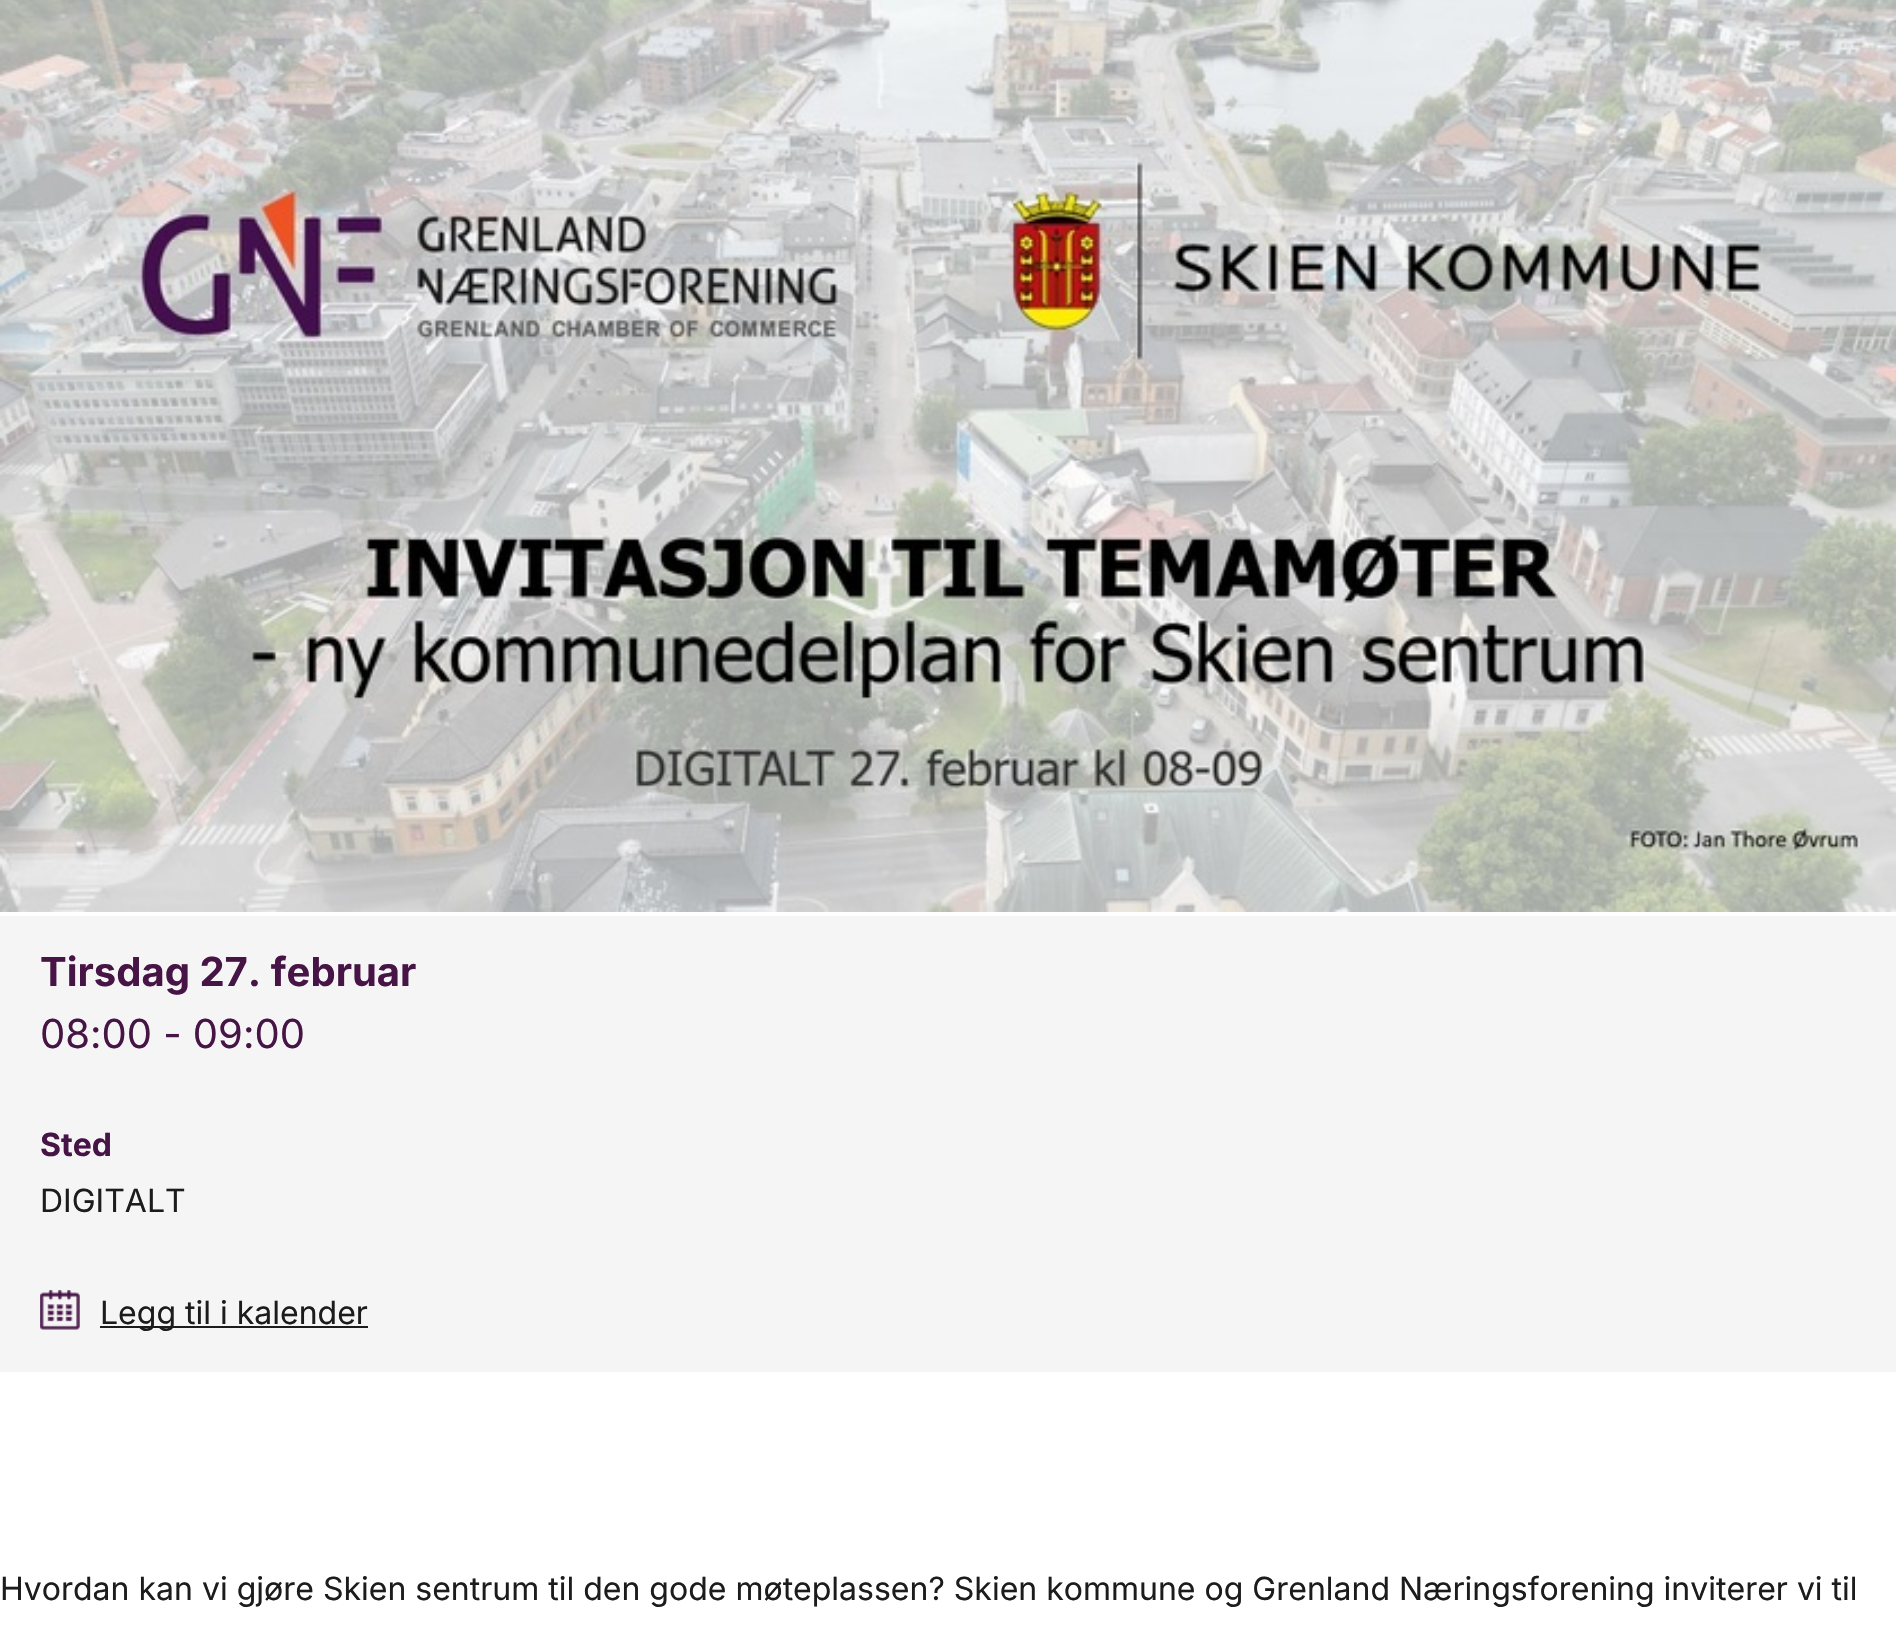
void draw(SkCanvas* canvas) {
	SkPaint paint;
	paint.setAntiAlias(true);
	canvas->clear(0xffffffff);
	canvas->drawImageRect(SkImages::DeferredFromEncodedData(SkData::MakeFromFileName("img1.png")), SkRect::MakeXYWH(0, 0, 1896, 912), SkSamplingOptions());
	paint.setColor(0xfff5f5f5);
	canvas->drawRect(SkRect::MakeXYWH(0, 916, 1896, 456), paint);
	SkFont f1(fontMgr->matchFamilyStyle("Inter", SkFontStyle::Bold()), 40);
	f1.setSubpixel(true);
	paint.setColor(0xff461546);
	canvas->drawString("Tirsdag 27. februar", 40, 986, f1, paint);
	SkFont f2(fontMgr->matchFamilyStyle("Inter", SkFontStyle::Normal()), 40);
	f2.setSubpixel(true);
	canvas->drawString("08:00 - 09:00", 40, 1048, f2, paint);
	SkFont f3(fontMgr->matchFamilyStyle("Inter", SkFontStyle::Bold()), 32);
	f3.setSubpixel(true);
	canvas->drawString("Sted", 40, 1156, f3, paint);
	SkFont f4(fontMgr->matchFamilyStyle("Inter", SkFontStyle::Normal()), 32);
	f4.setSubpixel(true);
	paint.setColor(0xff1c1c1c);
	canvas->drawString("DIGITALT", 40, 1212, f4, paint);
	canvas->drawImageRect(SkImages::DeferredFromEncodedData(SkData::MakeFromFileName("img2.png")), SkRect::MakeXYWH(40, 1290, 40, 40), SkSamplingOptions());
	canvas->drawRect(SkRect::MakeXYWH(100, 1326, 268, 2), paint);
	canvas->drawString("Legg til i kalender", 100, 1324, f4, paint);
	canvas->drawString("Hvordan kan vi gjøre Skien sentrum til den gode møteplassen? Skien kommune og Grenland Næringsforening inviterer vi til", 0, 1600, f4, paint);
}
